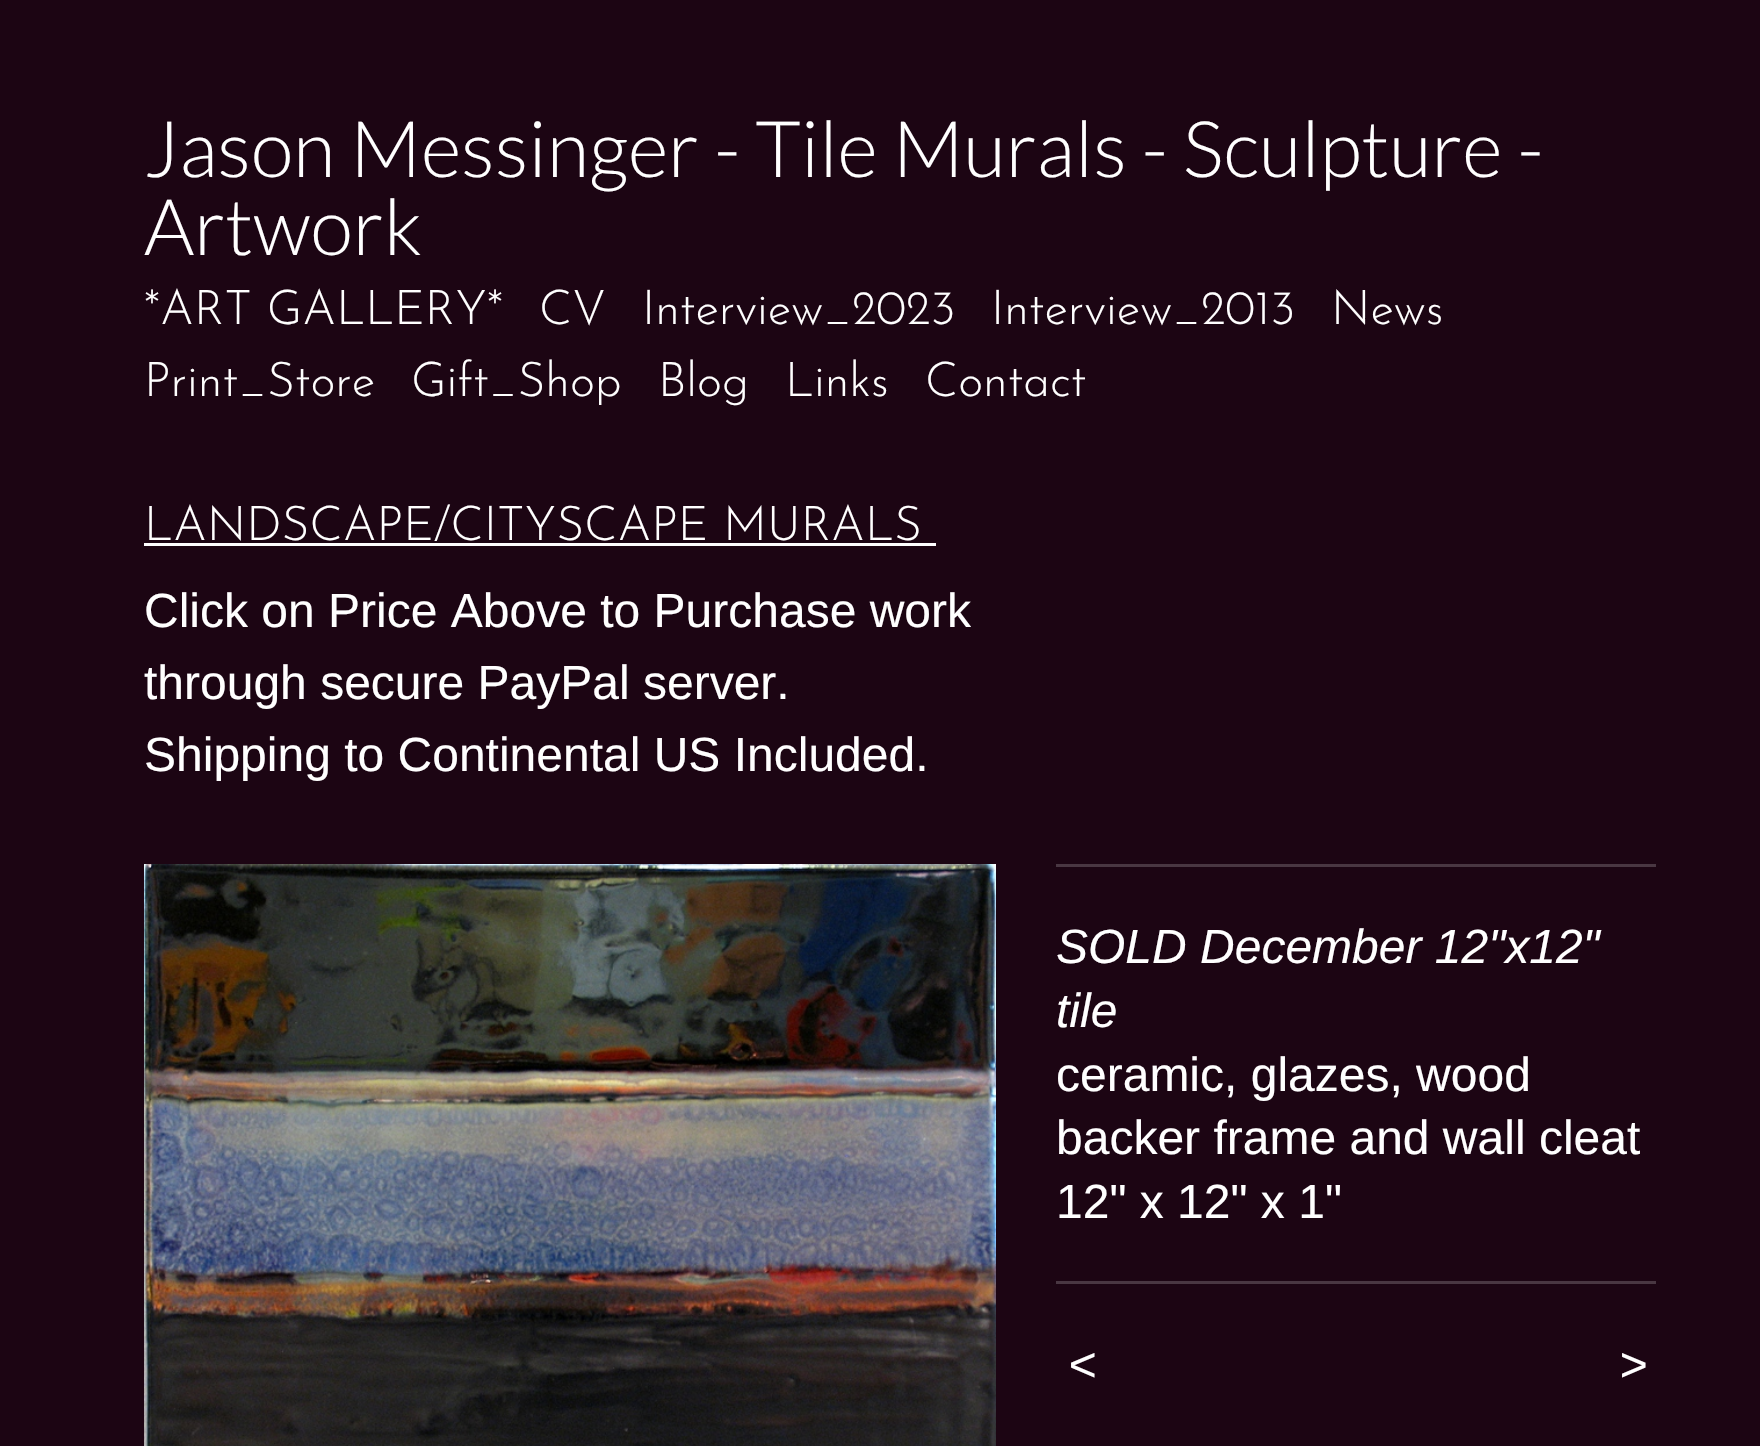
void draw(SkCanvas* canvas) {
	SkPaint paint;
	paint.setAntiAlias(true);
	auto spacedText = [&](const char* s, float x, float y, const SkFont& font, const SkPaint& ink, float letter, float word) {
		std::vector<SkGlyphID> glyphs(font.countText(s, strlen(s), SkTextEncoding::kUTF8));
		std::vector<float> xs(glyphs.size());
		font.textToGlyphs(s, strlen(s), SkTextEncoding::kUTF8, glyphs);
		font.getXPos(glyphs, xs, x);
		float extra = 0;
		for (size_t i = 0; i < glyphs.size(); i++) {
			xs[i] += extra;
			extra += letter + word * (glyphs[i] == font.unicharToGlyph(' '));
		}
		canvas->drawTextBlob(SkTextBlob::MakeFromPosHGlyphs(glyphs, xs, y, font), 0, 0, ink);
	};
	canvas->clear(0xff1c0513);
	SkFont f1(fontMgr->matchFamilyStyle("Lato", SkFontStyle(300, SkFontStyle::kNormal_Width, SkFontStyle::kUpright_Slant)), 78);
	f1.setSubpixel(true);
	paint.setColor(0xffffffff);
	canvas->drawString("Jason Messinger - Tile Murals - Sculpture -", 144, 177, f1, paint);
	canvas->drawString("Artwork", 144, 255, f1, paint);
	SkFont f2(fontMgr->matchFamilyStyle("Josefin Sans", SkFontStyle(100, SkFontStyle::kNormal_Width, SkFontStyle::kUpright_Slant)), 48);
	f2.setSubpixel(true);
	canvas->drawString("*ART GALLERY*", 144, 324, f2, paint);
	canvas->drawString("CV", 539, 324, f2, paint);
	canvas->drawString("Interview_2023", 642, 324, f2, paint);
	canvas->drawString("Interview_2013", 991, 324, f2, paint);
	canvas->drawString("News", 1331, 324, f2, paint);
	canvas->drawString("Print_Store", 144, 396, f2, paint);
	canvas->drawString("Gift_Shop", 411, 396, f2, paint);
	canvas->drawString("Blog", 658, 396, f2, paint);
	canvas->drawString("Links", 785, 396, f2, paint);
	canvas->drawString("Contact", 925, 396, f2, paint);
	canvas->drawString("LANDSCAPE/CITYSCAPE MURALS", 144, 540, f2, paint);
	canvas->drawRect(SkRect::MakeXYWH(144, 543, 792, 3), paint);
	SkFont f3(fontMgr->matchFamilyStyle("Liberation Sans", SkFontStyle::Normal()), 48);
	f3.setSubpixel(true);
	canvas->drawString("Click on Price Above to Purchase work", 144, 627, f3, paint);
	canvas->drawString("through secure PayPal server.", 144, 699, f3, paint);
	canvas->drawString("Shipping to Continental US Included.", 144, 771, f3, paint);
	canvas->drawImageRect(SkImages::DeferredFromEncodedData(SkData::MakeFromFileName("img1.png")), SkRect::MakeXYWH(144, 864, 852, 582), SkSamplingOptions());
	paint.setColor(0xff493742);
	canvas->drawRect(SkRect::MakeXYWH(1056, 864, 600, 3), paint);
	SkFont f4(fontMgr->matchFamilyStyle("Liberation Sans", SkFontStyle::Italic()), 48);
	f4.setSubpixel(true);
	paint.setColor(0xffffffff);
	canvas->drawString("SOLD December 12\"x12\"", 1056, 963, f4, paint);
	canvas->drawString("tile", 1056, 1027, f4, paint);
	canvas->drawString("ceramic, glazes, wood", 1056, 1091, f3, paint);
	canvas->drawString("backer frame and wall cleat", 1056, 1154, f3, paint);
	canvas->drawString("12\" x 12\" x 1\"", 1056, 1218, f3, paint);
	paint.setColor(0xff493742);
	canvas->drawRect(SkRect::MakeXYWH(1056, 1281, 600, 3), paint);
	paint.setColor(0xffffffff);
	spacedText("<", 1068, 1381, f4, paint, 3, 0);
	spacedText(">", 1619, 1381, f4, paint, 3, 0);
}
